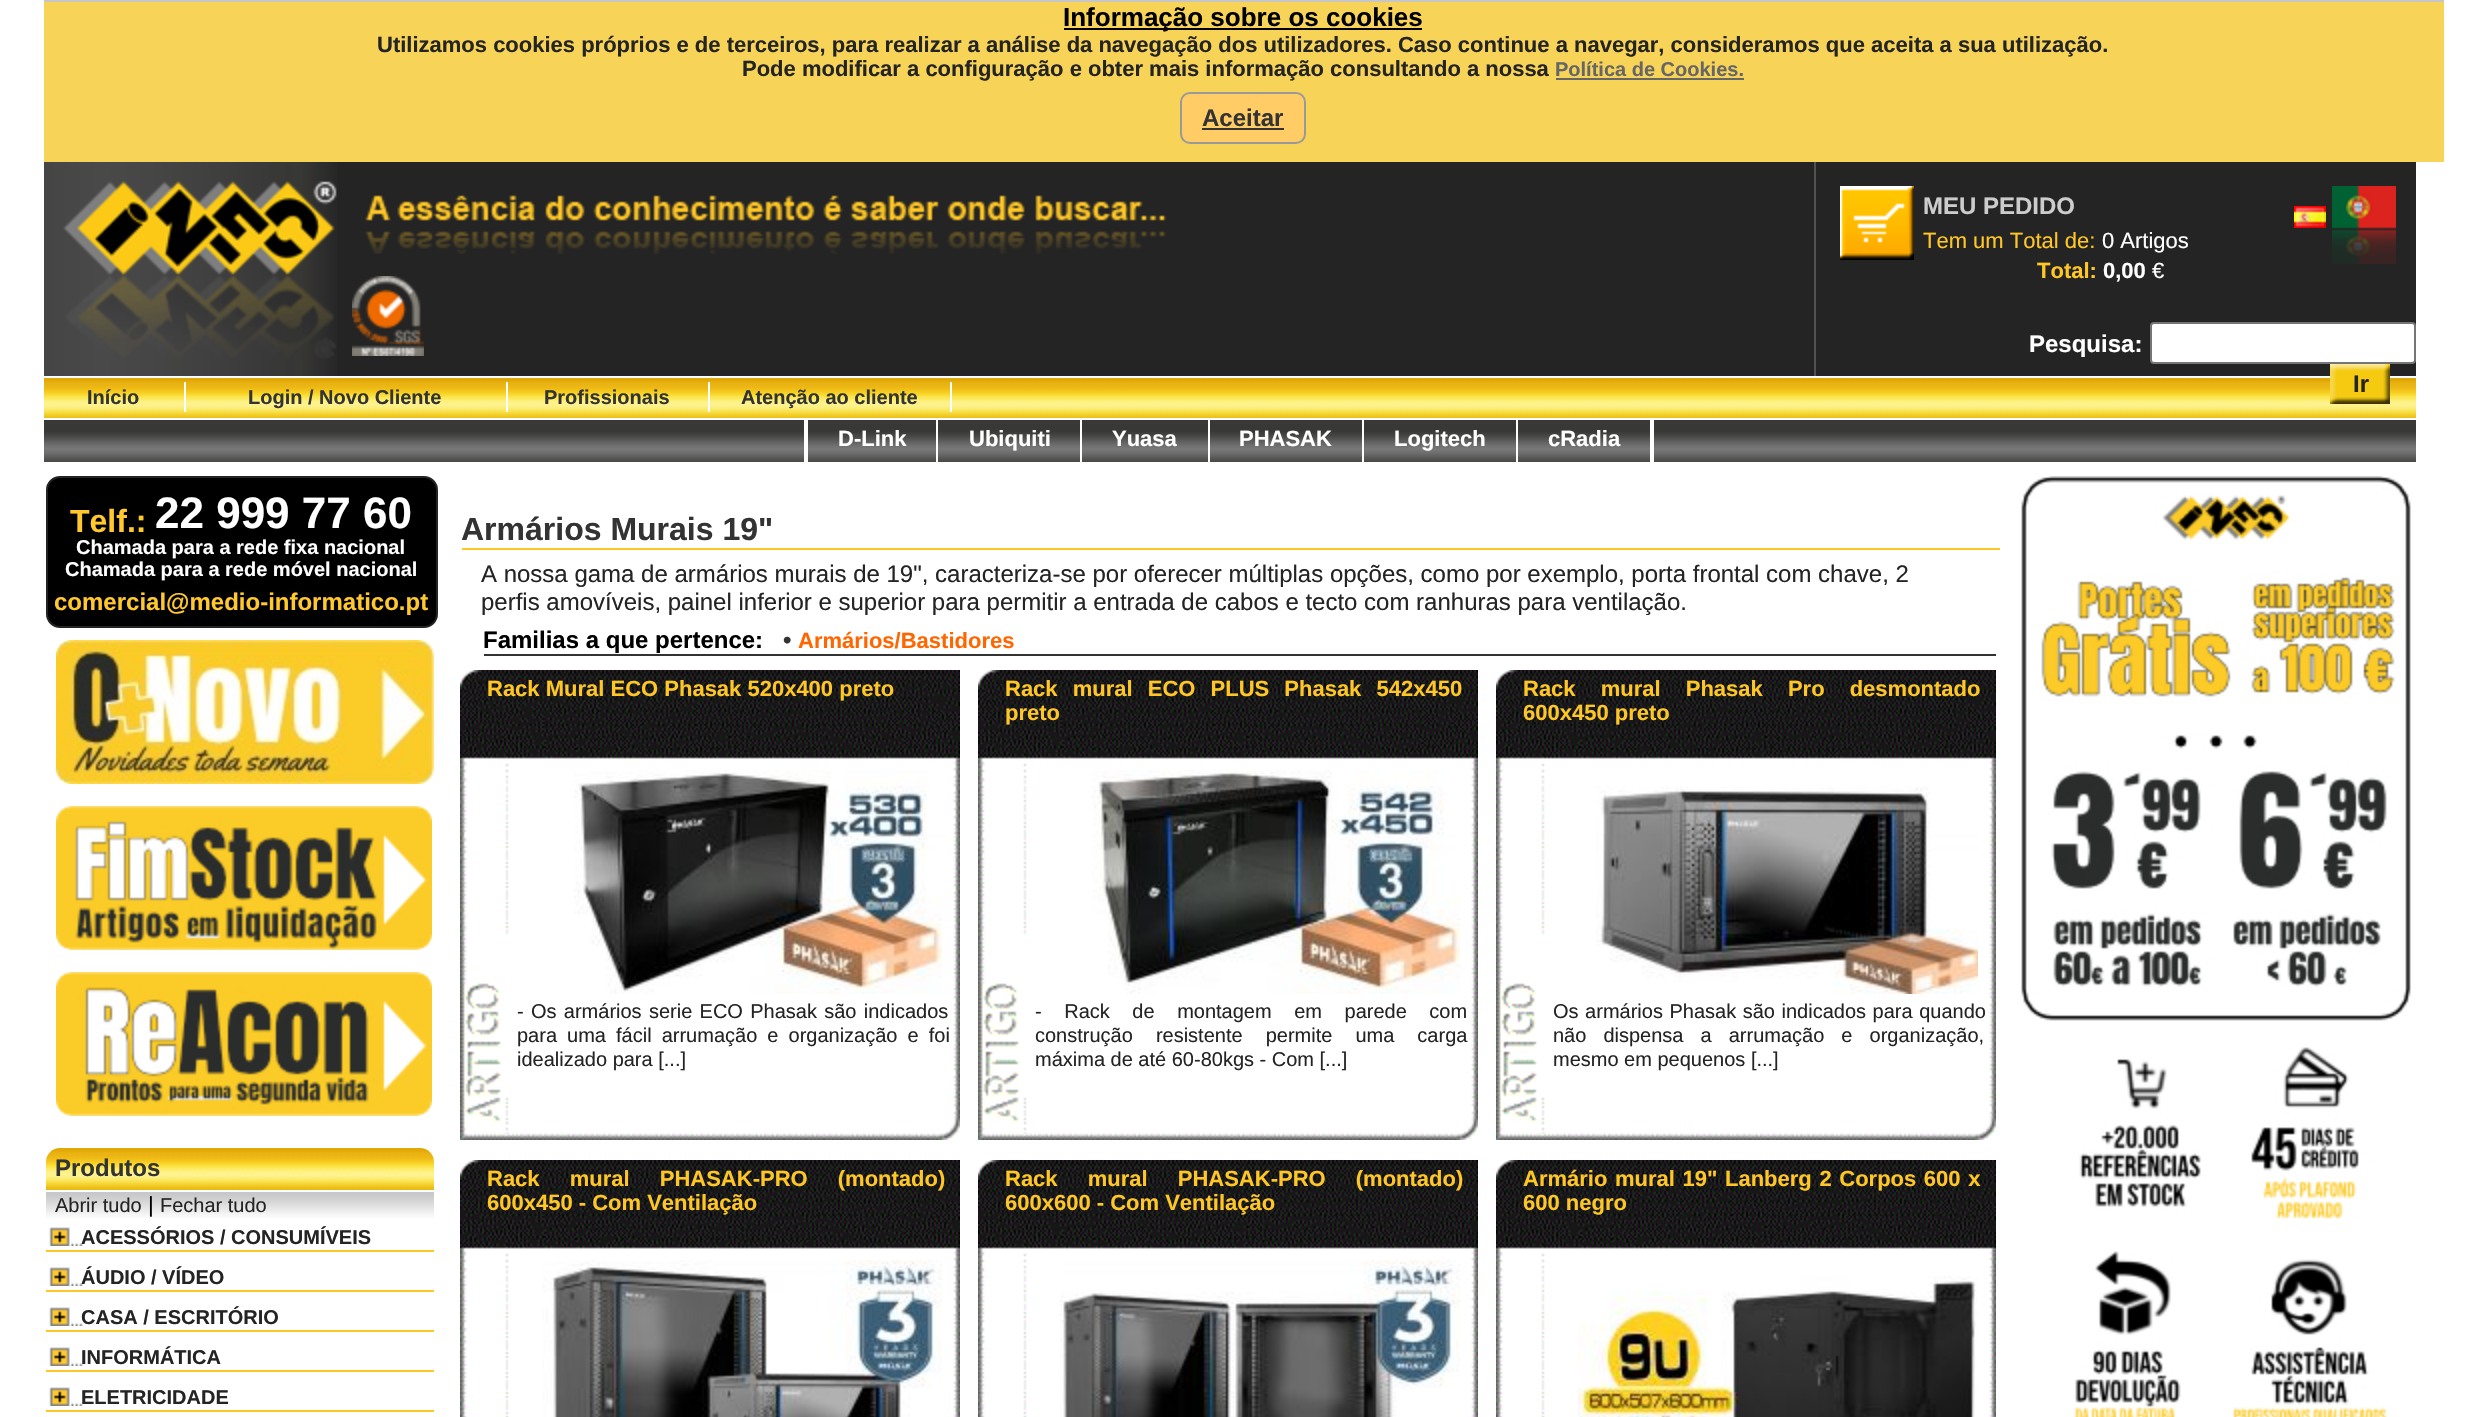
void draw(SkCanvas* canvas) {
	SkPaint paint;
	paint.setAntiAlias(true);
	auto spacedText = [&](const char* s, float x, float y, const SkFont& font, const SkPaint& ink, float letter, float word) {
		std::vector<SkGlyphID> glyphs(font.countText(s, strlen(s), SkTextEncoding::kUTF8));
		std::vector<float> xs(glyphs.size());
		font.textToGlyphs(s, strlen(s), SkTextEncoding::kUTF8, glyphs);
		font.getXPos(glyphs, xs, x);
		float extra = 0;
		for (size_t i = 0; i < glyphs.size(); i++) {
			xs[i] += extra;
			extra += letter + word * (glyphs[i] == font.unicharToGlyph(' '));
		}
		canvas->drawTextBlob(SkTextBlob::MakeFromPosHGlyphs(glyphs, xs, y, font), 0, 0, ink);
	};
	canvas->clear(0xffffffff);
	paint.setColor(0xfff7d358);
	canvas->drawRect(SkRect::MakeXYWH(44, 2, 2400, 160), paint);
	paint.setColor(0xffc6c6c6);
	canvas->drawRect(SkRect::MakeXYWH(44, 0, 2400, 2), paint);
	paint.setColor(0xff000000);
	canvas->drawRect(SkRect::MakeXYWH(1064, 28, 358, 2), paint);
	SkFont f1(fontMgr->matchFamilyStyle("Liberation Sans", SkFontStyle::Bold()), 26);
	f1.setSubpixel(true);
	canvas->drawString("Informação sobre os cookies", 1063, 26, f1, paint);
	SkFont f2(fontMgr->matchFamilyStyle("Liberation Sans", SkFontStyle::Bold()), 22);
	f2.setSubpixel(true);
	paint.setColor(0xff242424);
	canvas->drawString("Utilizamos cookies próprios e de terceiros, para realizar a análise da navegação dos utilizadores. Caso continue a navegar, consideramos que aceita a sua utilização.", 377, 52, f2, paint);
	canvas->drawString("Pode modificar a configuração e obter mais informação consultando a nossa", 742, 76, f2, paint);
	SkFont f3(fontMgr->matchFamilyStyle("Liberation Sans", SkFontStyle::Bold()), 20);
	f3.setSubpixel(true);
	paint.setColor(0xff666666);
	canvas->drawString("Política de Cookies.", 1555, 76, f3, paint);
	canvas->drawRect(SkRect::MakeXYWH(1556, 78, 188, 2), paint);
	paint.setColor(0xffffcc66);
	canvas->drawRoundRect(SkRect::MakeXYWH(1181, 93, 124, 50), 9, 9, paint);
	paint.setStroke(true);
	paint.setStrokeWidth(2);
	paint.setColor(0xff999999);
	canvas->drawRoundRect(SkRect::MakeXYWH(1181, 93, 124, 50), 9, 9, paint);
	SkFont f4(fontMgr->matchFamilyStyle("Liberation Sans", SkFontStyle::Bold()), 24);
	f4.setSubpixel(true);
	paint.setStroke(false);
	paint.setColor(0xff333333);
	canvas->drawString("Aceitar", 1202, 126, f4, paint);
	canvas->drawRect(SkRect::MakeXYWH(1202, 128, 82, 2), paint);
	paint.setColor(0xff242424);
	canvas->drawRect(SkRect::MakeXYWH(337, 162, 2079, 214), paint);
	canvas->drawImageRect(SkImages::DeferredFromEncodedData(SkData::MakeFromFileName("img1.png")), SkRect::MakeXYWH(44, 162, 293, 214), SkSamplingOptions());
	canvas->drawImageRect(SkImages::DeferredFromEncodedData(SkData::MakeFromFileName("img2.png")), SkRect::MakeXYWH(365, 195, 802, 59), SkSamplingOptions());
	paint.setColor(0xff525252);
	canvas->drawRect(SkRect::MakeXYWH(1814, 162, 2, 214), paint);
	canvas->drawImageRect(SkImages::DeferredFromEncodedData(SkData::MakeFromFileName("img3.png")), SkRect::MakeXYWH(1840, 186, 74, 74), SkSamplingOptions());
	paint.setColor(0xffcccccc);
	canvas->drawString("MEU PEDIDO", 1923, 214, f4, paint);
	canvas->drawImageRect(SkImages::DeferredFromEncodedData(SkData::MakeFromFileName("img4.png")), SkRect::MakeXYWH(2294, 206, 32, 22), SkSamplingOptions());
	canvas->drawImageRect(SkImages::DeferredFromEncodedData(SkData::MakeFromFileName("img5.png")), SkRect::MakeXYWH(2332, 186, 64, 78), SkSamplingOptions());
	SkFont f5(fontMgr->matchFamilyStyle("Liberation Sans", SkFontStyle::Normal()), 22);
	f5.setSubpixel(true);
	paint.setColor(0xffffc726);
	canvas->drawString("Tem um Total de:", 1923, 248, f5, paint);
	paint.setColor(0xffffffff);
	canvas->drawString("0 Artigos", 2102, 248, f5, paint);
	paint.setColor(0xffffc726);
	canvas->drawString("Total:", 2037, 278, f2, paint);
	paint.setColor(0xffffffff);
	canvas->drawString("0,00", 2103, 278, f2, paint);
	canvas->drawString("€", 2152, 278, f5, paint);
	canvas->drawImageRect(SkImages::DeferredFromEncodedData(SkData::MakeFromFileName("img6.png")), SkRect::MakeXYWH(352, 276, 72, 80), SkSamplingOptions());
	canvas->drawString("Pesquisa:", 2029, 352, f4, paint);
	canvas->drawRoundRect(SkRect::MakeXYWH(2151, 323, 264, 40), 3, 3, paint);
	paint.setStroke(true);
	paint.setColor(0xff767676);
	canvas->drawRoundRect(SkRect::MakeXYWH(2151, 323, 264, 40), 3, 3, paint);
	canvas->drawImageRect(SkImages::DeferredFromEncodedData(SkData::MakeFromFileName("img8.png")), SkRect::MakeXYWH(44, 378, 2372, 40), SkSamplingOptions());
	canvas->drawImageRect(SkImages::DeferredFromEncodedData(SkData::MakeFromFileName("img7.png")), SkRect::MakeXYWH(2330, 364, 60, 40), SkSamplingOptions());
	paint.setStroke(false);
	paint.setColor(0xff242424);
	canvas->drawString("Ir", 2353, 392, f4, paint);
	paint.setColor(0xffffffff);
	canvas->drawRect(SkRect::MakeXYWH(184, 382, 2, 30), paint);
	paint.setColor(0xff333333);
	canvas->drawString("Início", 87, 404, f3, paint);
	paint.setColor(0xffffffff);
	canvas->drawRect(SkRect::MakeXYWH(506, 382, 2, 30), paint);
	paint.setColor(0xff333333);
	canvas->drawString("Login / Novo Cliente", 248, 404, f3, paint);
	paint.setColor(0xffffffff);
	canvas->drawRect(SkRect::MakeXYWH(708, 382, 2, 30), paint);
	paint.setColor(0xff333333);
	canvas->drawString("Profissionais", 544, 404, f3, paint);
	paint.setColor(0xffffffff);
	canvas->drawRect(SkRect::MakeXYWH(950, 382, 2, 30), paint);
	paint.setColor(0xff333333);
	canvas->drawString("Atenção ao cliente", 741, 404, f3, paint);
	canvas->drawImageRect(SkImages::DeferredFromEncodedData(SkData::MakeFromFileName("img9.png")), SkRect::MakeXYWH(44, 420, 2372, 42), SkSamplingOptions());
	canvas->drawImageRect(SkImages::DeferredFromEncodedData(SkData::MakeFromFileName("img10.png")), SkRect::MakeXYWH(808, 420, 128, 42), SkSamplingOptions());
	paint.setColor(0xffffffff);
	canvas->drawRect(SkRect::MakeXYWH(936, 420, 2, 42), paint);
	canvas->drawRect(SkRect::MakeXYWH(804, 420, 4, 42), paint);
	canvas->drawString("D-Link", 838, 446, f2, paint);
	canvas->drawImageRect(SkImages::DeferredFromEncodedData(SkData::MakeFromFileName("img11.png")), SkRect::MakeXYWH(938, 420, 142, 42), SkSamplingOptions());
	canvas->drawRect(SkRect::MakeXYWH(1080, 420, 2, 42), paint);
	canvas->drawString("Ubiquiti", 969, 446, f2, paint);
	canvas->drawImageRect(SkImages::DeferredFromEncodedData(SkData::MakeFromFileName("img12.png")), SkRect::MakeXYWH(1082, 420, 126, 42), SkSamplingOptions());
	canvas->drawRect(SkRect::MakeXYWH(1208, 420, 2, 42), paint);
	canvas->drawString("Yuasa", 1112, 446, f2, paint);
	canvas->drawImageRect(SkImages::DeferredFromEncodedData(SkData::MakeFromFileName("img13.png")), SkRect::MakeXYWH(1210, 420, 152, 42), SkSamplingOptions());
	canvas->drawRect(SkRect::MakeXYWH(1362, 420, 2, 42), paint);
	canvas->drawString("PHASAK", 1239, 446, f2, paint);
	canvas->drawImageRect(SkImages::DeferredFromEncodedData(SkData::MakeFromFileName("img13.png")), SkRect::MakeXYWH(1364, 420, 152, 42), SkSamplingOptions());
	canvas->drawRect(SkRect::MakeXYWH(1516, 420, 2, 42), paint);
	canvas->drawString("Logitech", 1394, 446, f2, paint);
	canvas->drawImageRect(SkImages::DeferredFromEncodedData(SkData::MakeFromFileName("img14.png")), SkRect::MakeXYWH(1518, 420, 132, 42), SkSamplingOptions());
	canvas->drawRect(SkRect::MakeXYWH(1650, 420, 4, 42), paint);
	canvas->drawString("cRadia", 1548, 446, f2, paint);
	paint.setColor(0xff000000);
	canvas->drawRoundRect(SkRect::MakeXYWH(47, 477, 390, 150), 13, 13, paint);
	paint.setStroke(true);
	paint.setColor(0xff242424);
	canvas->drawRoundRect(SkRect::MakeXYWH(47, 477, 390, 150), 13, 13, paint);
	SkFont f6(fontMgr->matchFamilyStyle("Liberation Sans", SkFontStyle::Bold()), 32);
	f6.setSubpixel(true);
	paint.setStroke(false);
	paint.setColor(0xffffc82e);
	canvas->drawString("Telf.:", 70, 532, f6, paint);
	SkFont f7(fontMgr->matchFamilyStyle("Liberation Sans", SkFontStyle::Bold()), 44);
	f7.setSubpixel(true);
	paint.setColor(0xffffffff);
	canvas->drawString("22 999 77 60", 155, 528, f7, paint);
	canvas->drawString("Chamada para a rede fixa nacional", 76, 554, f3, paint);
	canvas->drawString("Chamada para a rede móvel nacional", 65, 576, f3, paint);
	paint.setColor(0xffffc82e);
	canvas->drawString("comercial@medio-informatico.pt", 54, 610, f4, paint);
	canvas->drawImageRect(SkImages::DeferredFromEncodedData(SkData::MakeFromFileName("img15.png")), SkRect::MakeXYWH(56, 640, 378, 144), SkSamplingOptions());
	canvas->drawImageRect(SkImages::DeferredFromEncodedData(SkData::MakeFromFileName("img16.png")), SkRect::MakeXYWH(56, 806, 376, 144), SkSamplingOptions());
	canvas->drawImageRect(SkImages::DeferredFromEncodedData(SkData::MakeFromFileName("img17.png")), SkRect::MakeXYWH(56, 972, 376, 144), SkSamplingOptions());
	canvas->drawImageRect(SkImages::DeferredFromEncodedData(SkData::MakeFromFileName("img18.png")), SkRect::MakeXYWH(46, 1148, 388, 42), SkSamplingOptions());
	paint.setColor(0xff333333);
	canvas->drawString("Produtos", 55, 1176, f4, paint);
	canvas->drawImageRect(SkImages::DeferredFromEncodedData(SkData::MakeFromFileName("img19.png")), SkRect::MakeXYWH(46, 1192, 388, 26), SkSamplingOptions());
	SkFont f8(fontMgr->matchFamilyStyle("Liberation Sans", SkFontStyle::Normal()), 20);
	f8.setSubpixel(true);
	paint.setColor(0xff242424);
	canvas->drawString("Abrir tudo", 55, 1212, f8, paint);
	paint.setColor(0xff000000);
	canvas->drawString("|", 148, 1212, f5, paint);
	paint.setColor(0xff242424);
	canvas->drawString("Fechar tudo", 160, 1212, f8, paint);
	canvas->drawImageRect(SkImages::DeferredFromEncodedData(SkData::MakeFromFileName("img20.png")), SkRect::MakeXYWH(49, 1227, 34, 19), SkSamplingOptions());
	paint.setColor(0xffffc726);
	canvas->drawRect(SkRect::MakeXYWH(46, 1250, 388, 2), paint);
	paint.setColor(0xff242424);
	canvas->drawString("ACESSÓRIOS / CONSUMÍVEIS", 81, 1244, f3, paint);
	canvas->drawImageRect(SkImages::DeferredFromEncodedData(SkData::MakeFromFileName("img20.png")), SkRect::MakeXYWH(49, 1267, 34, 19), SkSamplingOptions());
	paint.setColor(0xffffc726);
	canvas->drawRect(SkRect::MakeXYWH(46, 1290, 388, 2), paint);
	paint.setColor(0xff242424);
	canvas->drawString("ÁUDIO / VÍDEO", 81, 1284, f3, paint);
	canvas->drawImageRect(SkImages::DeferredFromEncodedData(SkData::MakeFromFileName("img20.png")), SkRect::MakeXYWH(49, 1307, 34, 19), SkSamplingOptions());
	paint.setColor(0xffffc726);
	canvas->drawRect(SkRect::MakeXYWH(46, 1330, 388, 2), paint);
	paint.setColor(0xff242424);
	canvas->drawString("CASA / ESCRITÓRIO", 81, 1324, f3, paint);
	canvas->drawImageRect(SkImages::DeferredFromEncodedData(SkData::MakeFromFileName("img20.png")), SkRect::MakeXYWH(49, 1347, 34, 19), SkSamplingOptions());
	paint.setColor(0xffffc726);
	canvas->drawRect(SkRect::MakeXYWH(46, 1370, 388, 2), paint);
	paint.setColor(0xff242424);
	canvas->drawString("INFORMÁTICA", 81, 1364, f3, paint);
	canvas->drawImageRect(SkImages::DeferredFromEncodedData(SkData::MakeFromFileName("img20.png")), SkRect::MakeXYWH(49, 1387, 34, 19), SkSamplingOptions());
	paint.setColor(0xffffc726);
	canvas->drawRect(SkRect::MakeXYWH(46, 1410, 388, 2), paint);
	paint.setColor(0xff242424);
	canvas->drawString("ELETRICIDADE", 81, 1404, f3, paint);
	paint.setColor(0xffffc726);
	canvas->drawRect(SkRect::MakeXYWH(462, 548, 1538, 2), paint);
	paint.setColor(0xff333333);
	canvas->drawString("Armários Murais 19\"", 461, 540, f6, paint);
	SkFont f9(fontMgr->matchFamilyStyle("Liberation Sans", SkFontStyle::Normal()), 24);
	f9.setSubpixel(true);
	paint.setColor(0xff242424);
	canvas->drawString("A nossa gama de armários murais de 19\", caracteriza-se por oferecer múltiplas opções, como por exemplo, porta frontal com chave, 2", 481, 582, f9, paint);
	canvas->drawString("perfis amovíveis, painel inferior e superior para permitir a entrada de cabos e tecto com ranhuras para ventilação.", 481, 610, f9, paint);
	paint.setColor(0xff333333);
	canvas->drawRect(SkRect::MakeXYWH(484, 654, 1512, 2), paint);
	paint.setColor(0xff000000);
	canvas->drawString("Familias a que pertence:", 483, 648, f4, paint);
	paint.setColor(0xff333333);
	canvas->drawString("•", 783, 648, f4, paint);
	paint.setColor(0xffff6600);
	canvas->drawString("Armários/Bastidores", 798, 648, f2, paint);
	canvas->drawImageRect(SkImages::DeferredFromEncodedData(SkData::MakeFromFileName("img21.png")), SkRect::MakeXYWH(460, 670, 500, 470), SkSamplingOptions());
	paint.setColor(0xffffc726);
	canvas->drawString("Rack Mural ECO Phasak 520x400 preto", 487, 696, f2, paint);
	canvas->drawImageRect(SkImages::DeferredFromEncodedData(SkData::MakeFromFileName("img22.png")), SkRect::MakeXYWH(574, 770, 368, 224), SkSamplingOptions());
	paint.setColor(0xff242424);
	spacedText("- Os armários serie ECO Phasak são indicados", 517, 1018, f8, paint, 0, 1.75);
	spacedText("para uma fácil arrumação e organização e foi", 517, 1042, f8, paint, 0, 4.5);
	canvas->drawString("idealizado para [...]", 517, 1066, f8, paint);
	canvas->drawImageRect(SkImages::DeferredFromEncodedData(SkData::MakeFromFileName("img21.png")), SkRect::MakeXYWH(978, 670, 500, 470), SkSamplingOptions());
	paint.setColor(0xffffc726);
	spacedText("Rack mural ECO PLUS Phasak 542x450", 1005, 696, f2, paint, 0, 9);
	canvas->drawString("preto", 1005, 720, f2, paint);
	canvas->drawImageRect(SkImages::DeferredFromEncodedData(SkData::MakeFromFileName("img23.png")), SkRect::MakeXYWH(1092, 770, 368, 224), SkSamplingOptions());
	paint.setColor(0xff242424);
	spacedText("- Rack de montagem em parede com", 1035, 1018, f8, paint, 0, 17);
	spacedText("construção resistente permite uma carga", 1035, 1042, f8, paint, 0, 17.5);
	canvas->drawString("máxima de até 60-80kgs - Com [...]", 1035, 1066, f8, paint);
	canvas->drawImageRect(SkImages::DeferredFromEncodedData(SkData::MakeFromFileName("img21.png")), SkRect::MakeXYWH(1496, 670, 500, 470), SkSamplingOptions());
	paint.setColor(0xffffc726);
	spacedText("Rack mural Phasak Pro desmontado", 1523, 696, f2, paint, 0, 19);
	canvas->drawString("600x450 preto", 1523, 720, f2, paint);
	canvas->drawImageRect(SkImages::DeferredFromEncodedData(SkData::MakeFromFileName("img24.png")), SkRect::MakeXYWH(1596, 786, 382, 208), SkSamplingOptions());
	paint.setColor(0xff242424);
	spacedText("Os armários Phasak são indicados para quando", 1553, 1018, f8, paint, 0, 1);
	spacedText("não dispensa a arrumação e organização,", 1553, 1042, f8, paint, 0, 11.5);
	canvas->drawString("mesmo em pequenos [...]", 1553, 1066, f8, paint);
	canvas->drawImageRect(SkImages::DeferredFromEncodedData(SkData::MakeFromFileName("img25.png")), SkRect::MakeXYWH(460, 1160, 500, 257), SkSamplingOptions());
	paint.setColor(0xffffc726);
	spacedText("Rack mural PHASAK-PRO (montado)", 487, 1186, f2, paint, 0, 24);
	canvas->drawString("600x450 - Com Ventilação", 487, 1210, f2, paint);
	canvas->drawImageRect(SkImages::DeferredFromEncodedData(SkData::MakeFromFileName("img26.png")), SkRect::MakeXYWH(542, 1260, 400, 157), SkSamplingOptions());
	canvas->drawImageRect(SkImages::DeferredFromEncodedData(SkData::MakeFromFileName("img25.png")), SkRect::MakeXYWH(978, 1160, 500, 257), SkSamplingOptions());
	spacedText("Rack mural PHASAK-PRO (montado)", 1005, 1186, f2, paint, 0, 24);
	canvas->drawString("600x600 - Com Ventilação", 1005, 1210, f2, paint);
	canvas->drawImageRect(SkImages::DeferredFromEncodedData(SkData::MakeFromFileName("img27.png")), SkRect::MakeXYWH(1060, 1260, 400, 157), SkSamplingOptions());
	canvas->drawImageRect(SkImages::DeferredFromEncodedData(SkData::MakeFromFileName("img25.png")), SkRect::MakeXYWH(1496, 1160, 500, 257), SkSamplingOptions());
	spacedText("Armário mural 19\" Lanberg 2 Corpos 600 x", 1523, 1186, f2, paint, 0, 1.5);
	canvas->drawString("600 negro", 1523, 1210, f2, paint);
	canvas->drawImageRect(SkImages::DeferredFromEncodedData(SkData::MakeFromFileName("img28.png")), SkRect::MakeXYWH(1578, 1276, 400, 141), SkSamplingOptions());
	canvas->drawImageRect(SkImages::DeferredFromEncodedData(SkData::MakeFromFileName("img29.png")), SkRect::MakeXYWH(2021, 476, 390, 941), SkSamplingOptions());
}
